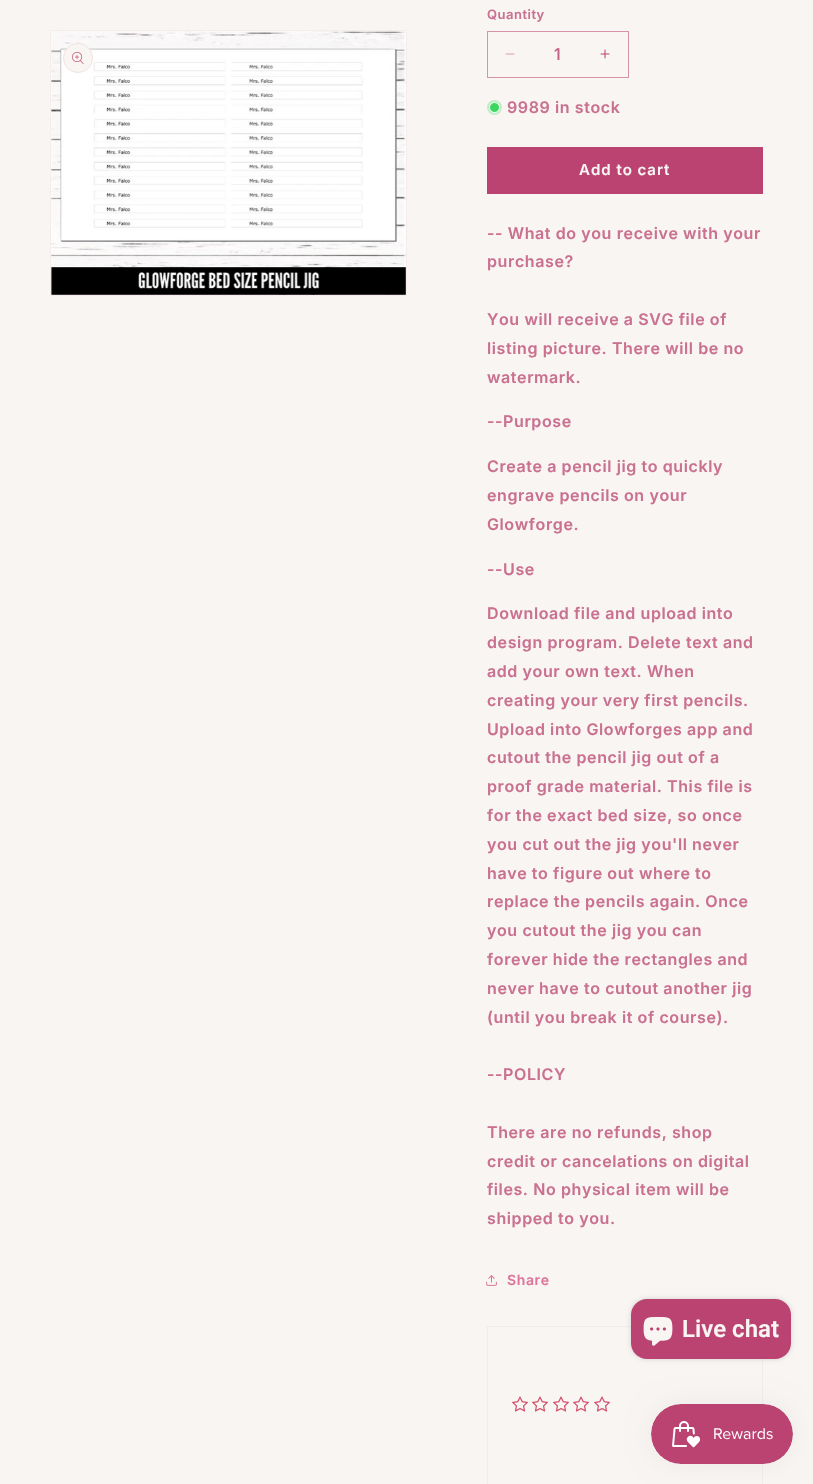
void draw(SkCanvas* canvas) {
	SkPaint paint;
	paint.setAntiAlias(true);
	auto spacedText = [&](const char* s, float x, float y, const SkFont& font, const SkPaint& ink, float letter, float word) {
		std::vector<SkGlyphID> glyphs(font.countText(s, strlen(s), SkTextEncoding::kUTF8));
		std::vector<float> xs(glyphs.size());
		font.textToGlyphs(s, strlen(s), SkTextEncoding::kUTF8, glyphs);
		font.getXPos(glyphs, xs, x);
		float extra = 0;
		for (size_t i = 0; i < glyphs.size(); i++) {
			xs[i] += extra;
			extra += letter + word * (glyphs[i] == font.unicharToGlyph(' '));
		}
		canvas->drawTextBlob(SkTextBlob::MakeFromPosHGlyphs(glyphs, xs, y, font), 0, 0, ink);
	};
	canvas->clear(0xfff8f5f2);
	paint.setStroke(true);
	paint.setStrokeWidth(1);
	paint.setColor(0xfff5ecec);
	canvas->drawRect(SkRect::MakeXYWH(50.5, 30.5, 356, 265), paint);
	canvas->drawImageRect(SkImages::DeferredFromEncodedData(SkData::MakeFromFileName("img1.png")), SkRect::MakeXYWH(51, 31, 355, 264), SkSamplingOptions());
	paint.setStroke(false);
	paint.setColor(0xfff8f5f2);
	canvas->drawCircle(78, 58, 15, paint);
	paint.setStroke(true);
	paint.setColor(0x1aba4371);
	canvas->drawCircle(78, 58, 14.5, paint);
	canvas->drawImageRect(SkImages::DeferredFromEncodedData(SkData::MakeFromFileName("img2.png")), SkRect::MakeXYWH(72, 52, 12, 12), SkSamplingOptions());
	SkFont f1(fontMgr->matchFamilyStyle("Inter", SkFontStyle(600, SkFontStyle::kNormal_Width, SkFontStyle::kUpright_Slant)), 13);
	f1.setSubpixel(true);
	paint.setStroke(false);
	paint.setColor(0xffca7091);
	spacedText("Quantity", 487, 19, f1, paint, 0.5, 0);
	canvas->drawImageRect(SkImages::DeferredFromEncodedData(SkData::MakeFromFileName("img3.png")), SkRect::MakeXYWH(505, 53, 10, 2), SkSamplingOptions());
	canvas->drawImageRect(SkImages::DeferredFromEncodedData(SkData::MakeFromFileName("img4.png")), SkRect::MakeXYWH(600, 49, 10, 10), SkSamplingOptions());
	paint.setStroke(true);
	paint.setColor(0xffd693ab);
	canvas->drawRect(SkRect::MakeXYWH(487.5, 31.5, 141, 46), paint);
	SkFont f2(fontMgr->matchFamilyStyle("Inter", SkFontStyle(500, SkFontStyle::kNormal_Width, SkFontStyle::kUpright_Slant)), 16);
	f2.setSubpixel(true);
	paint.setStroke(false);
	paint.setColor(0xffc35e84);
	canvas->drawString("1", 554, 60, f2, paint);
	paint.setColor(0xffc0ecc6);
	canvas->drawCircle(494.5, 107.5, 7.5, paint);
	paint.setColor(0xff3ed660);
	canvas->drawCircle(494.5, 107.5, 5, paint);
	paint.setStroke(true);
	paint.setColor(0xffffffff);
	canvas->drawCircle(494.5, 107.5, 5, paint);
	SkFont f3(fontMgr->matchFamilyStyle("Inter", SkFontStyle(600, SkFontStyle::kNormal_Width, SkFontStyle::kUpright_Slant)), 16);
	f3.setSubpixel(true);
	paint.setStroke(false);
	paint.setColor(0xffca7091);
	spacedText("9989 in stock", 507, 113, f3, paint, 0.6, 0);
	paint.setColor(0xffba4371);
	canvas->drawRect(SkRect::MakeXYWH(487, 147, 276, 47), paint);
	SkFont f4(fontMgr->matchFamilyStyle("Inter", SkFontStyle(600, SkFontStyle::kNormal_Width, SkFontStyle::kUpright_Slant)), 15);
	f4.setSubpixel(true);
	paint.setColor(0xfff8f5f2);
	spacedText("Add to cart", 579, 175, f4, paint, 1, 0);
	paint.setColor(0xffca7091);
	spacedText("-- What do you receive with your", 487, 239, f3, paint, 0.6, 0);
	spacedText("purchase?", 487, 267, f3, paint, 0.6, 0);
	spacedText("You will receive a SVG file of", 487, 325, f3, paint, 0.6, 0);
	spacedText("listing picture. There will be no", 487, 354, f3, paint, 0.6, 0);
	spacedText("watermark.", 487, 383, f3, paint, 0.6, 0);
	spacedText("--Purpose", 487, 427, f3, paint, 0.6, 0);
	spacedText("Create a pencil jig to quickly", 487, 472, f3, paint, 0.6, 0);
	spacedText("engrave pencils on your", 487, 501, f3, paint, 0.6, 0);
	spacedText("Glowforge.", 487, 530, f3, paint, 0.6, 0);
	spacedText("--Use", 487, 575, f3, paint, 0.6, 0);
	spacedText("Download file and upload into", 487, 619, f3, paint, 0.6, 0);
	spacedText("design program. Delete text and", 487, 648, f3, paint, 0.6, 0);
	spacedText("add your own text. When", 487, 677, f3, paint, 0.6, 0);
	spacedText("creating your very first pencils.", 487, 706, f3, paint, 0.6, 0);
	spacedText("Upload into Glowforges app and", 487, 735, f3, paint, 0.6, 0);
	spacedText("cutout the pencil jig out of a", 487, 763, f3, paint, 0.6, 0);
	spacedText("proof grade material. This file is", 487, 792, f3, paint, 0.6, 0);
	spacedText("for the exact bed size, so once", 487, 821, f3, paint, 0.6, 0);
	spacedText("you cut out the jig you'll never", 487, 850, f3, paint, 0.6, 0);
	spacedText("have to figure out where to", 487, 879, f3, paint, 0.6, 0);
	spacedText("replace the pencils again. Once", 487, 907, f3, paint, 0.6, 0);
	spacedText("you cutout the jig you can", 487, 936, f3, paint, 0.6, 0);
	spacedText("forever hide the rectangles and", 487, 965, f3, paint, 0.6, 0);
	spacedText("never have to cutout another jig", 487, 994, f3, paint, 0.6, 0);
	spacedText("(until you break it of course).", 487, 1023, f3, paint, 0.6, 0);
	spacedText("--POLICY", 487, 1080, f3, paint, 0.6, 0);
	spacedText("There are no refunds, shop", 487, 1138, f3, paint, 0.6, 0);
	spacedText("credit or cancelations on digital", 487, 1167, f3, paint, 0.6, 0);
	spacedText("files. No physical item will be", 487, 1195, f3, paint, 0.6, 0);
	spacedText("shipped to you.", 487, 1224, f3, paint, 0.6, 0);
	canvas->drawImageRect(SkImages::DeferredFromEncodedData(SkData::MakeFromFileName("img5.png")), SkRect::MakeXYWH(486, 1275, 11, 11), SkSamplingOptions());
	SkFont f5(fontMgr->matchFamilyStyle("Inter", SkFontStyle(600, SkFontStyle::kNormal_Width, SkFontStyle::kUpright_Slant)), 14);
	f5.setSubpixel(true);
	paint.setColor(0xffdd759d);
	spacedText("Share", 507, 1285, f5, paint, 0.6, 0);
	paint.setStroke(true);
	paint.setColor(0xffeeeeee);
	canvas->drawRect(SkRect::MakeXYWH(487.5, 1326.5, 275, 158), paint);
	canvas->drawImageRect(SkImages::DeferredFromEncodedData(SkData::MakeFromFileName("img6.png")), SkRect::MakeXYWH(512, 1396, 16, 16), SkSamplingOptions());
	canvas->drawImageRect(SkImages::DeferredFromEncodedData(SkData::MakeFromFileName("img6.png")), SkRect::MakeXYWH(532, 1396, 16, 16), SkSamplingOptions());
	canvas->drawImageRect(SkImages::DeferredFromEncodedData(SkData::MakeFromFileName("img6.png")), SkRect::MakeXYWH(553, 1396, 16, 16), SkSamplingOptions());
	canvas->drawImageRect(SkImages::DeferredFromEncodedData(SkData::MakeFromFileName("img6.png")), SkRect::MakeXYWH(573, 1396, 16, 16), SkSamplingOptions());
	canvas->drawImageRect(SkImages::DeferredFromEncodedData(SkData::MakeFromFileName("img6.png")), SkRect::MakeXYWH(594, 1396, 16, 16), SkSamplingOptions());
	paint.setStroke(false);
	paint.setColor(0x26000000);
	paint.setMaskFilter(SkMaskFilter::MakeBlur(kNormal_SkBlurStyle, 2.5));
	canvas->drawRoundRect(SkRect::MakeXYWH(631, 1299, 160, 60), 16, 16, paint);
	paint.setMaskFilter(nullptr);
	paint.setColor(0xffba4371);
	canvas->drawRoundRect(SkRect::MakeXYWH(631, 1299, 160, 60), 16, 16, paint);
	canvas->drawImageRect(SkImages::DeferredFromEncodedData(SkData::MakeFromFileName("img7.png")), SkRect::MakeXYWH(643, 1317, 30, 29), SkSamplingOptions());
	SkFont f6(fontMgr->matchFamilyStyle("Roboto", SkFontStyle(600, SkFontStyle::kNormal_Width, SkFontStyle::kUpright_Slant)), 24);
	f6.setSubpixel(true);
	paint.setColor(0xfff8f5f2);
	canvas->drawString("Live chat", 682, 1337, f6, paint);
	paint.setColor(0x0d000000);
	paint.setMaskFilter(SkMaskFilter::MakeBlur(kNormal_SkBlurStyle, 12.5));
	canvas->drawRoundRect(SkRect::MakeXYWH(651, 1404, 142, 60), 30, 30, paint);
	paint.setMaskFilter(nullptr);
	canvas->drawImageRect(SkImages::DeferredFromEncodedData(SkData::MakeFromFileName("img8.png")), SkRect::MakeXYWH(651, 1404, 142, 60), SkSamplingOptions());
}
